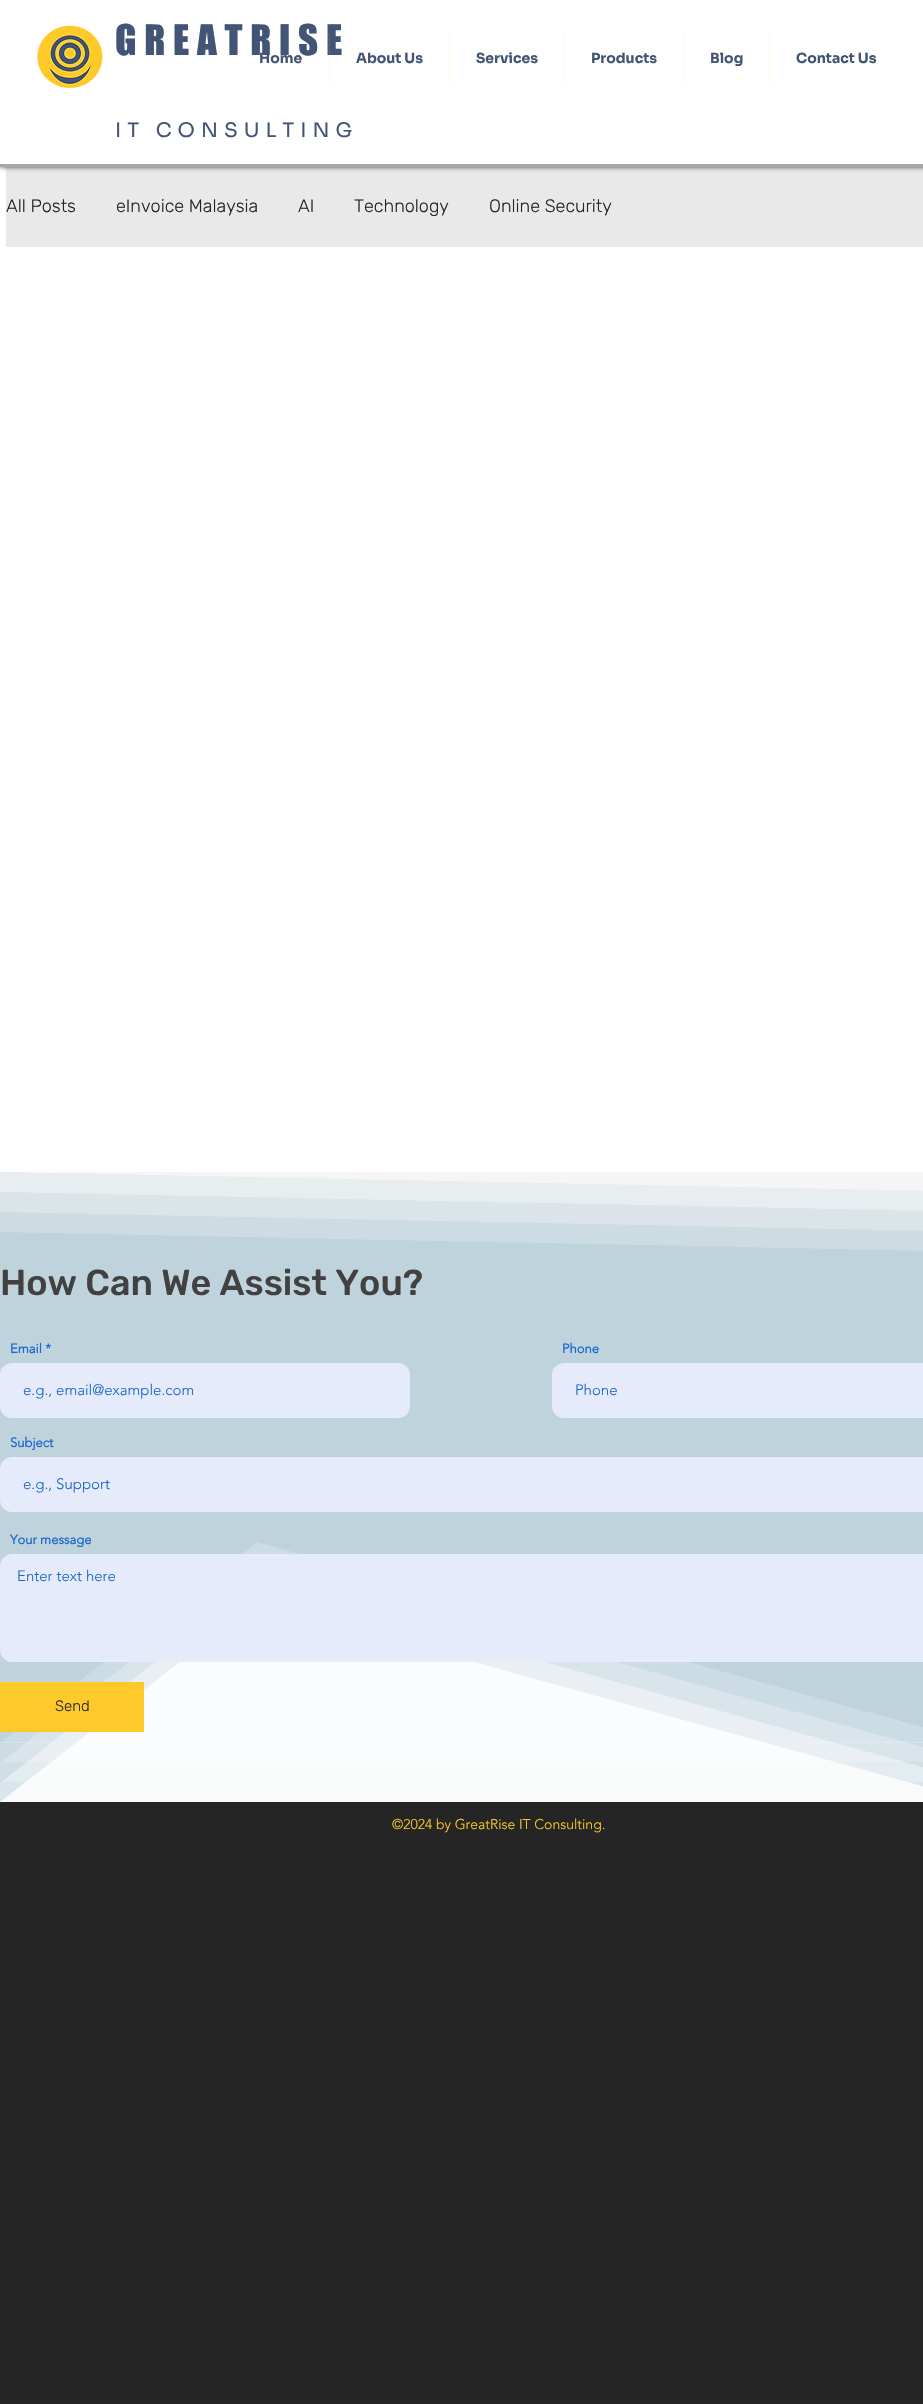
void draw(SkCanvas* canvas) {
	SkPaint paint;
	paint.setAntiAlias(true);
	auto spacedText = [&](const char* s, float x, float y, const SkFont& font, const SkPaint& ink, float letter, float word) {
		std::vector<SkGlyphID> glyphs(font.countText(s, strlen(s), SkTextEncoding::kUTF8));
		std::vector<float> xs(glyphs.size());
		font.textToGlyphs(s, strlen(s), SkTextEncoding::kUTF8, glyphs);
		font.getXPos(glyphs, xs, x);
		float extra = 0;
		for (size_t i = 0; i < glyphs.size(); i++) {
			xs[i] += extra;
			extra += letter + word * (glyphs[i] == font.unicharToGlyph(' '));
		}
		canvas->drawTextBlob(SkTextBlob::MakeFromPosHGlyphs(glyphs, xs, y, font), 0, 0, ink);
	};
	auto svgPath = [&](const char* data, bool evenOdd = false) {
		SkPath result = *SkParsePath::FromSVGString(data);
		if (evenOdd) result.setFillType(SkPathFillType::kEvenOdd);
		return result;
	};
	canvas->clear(0xff252525);
	paint.setColor(0xffffffff);
	canvas->drawRect(SkRect::MakeXYWH(0, 167, 923, 1005), paint);
	paint.setColor(0xffe9e9e9);
	canvas->drawRect(SkRect::MakeXYWH(6, 167, 917, 80), paint);
	paint.setColor(0xb3000000);
	paint.setMaskFilter(SkMaskFilter::MakeBlur(kNormal_SkBlurStyle, 2.5));
	canvas->drawRect(SkRect::MakeXYWH(0, 0, 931, 167), paint);
	paint.setMaskFilter(nullptr);
	paint.setColor(0xffa8a8a8);
	canvas->drawRect(SkRect::MakeXYWH(0, 164, 923, 3), paint);
	paint.setColor(0xffffffff);
	canvas->drawRect(SkRect::MakeXYWH(0, 0, 923, 164), paint);
	canvas->drawImageRect(SkImages::DeferredFromEncodedData(SkData::MakeFromFileName("img1.png")), SkRect::MakeXYWH(37, 25, 66, 64), SkSamplingOptions());
	SkFont f1(fontMgr->matchFamilyStyle("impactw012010", SkFontStyle::Normal()), 39);
	f1.setSubpixel(true);
	paint.setColor(0xff435576);
	spacedText("GREATRISE", 115, 55, f1, paint, 7.75, 0);
	SkFont f2(fontMgr->matchFamilyStyle("Sora", SkFontStyle::Normal()), 20);
	f2.setSubpixel(true);
	spacedText("IT CONSULTING", 115, 137, f2, paint, 6, 0);
	SkFont f3(fontMgr->matchFamilyStyle("Sora", SkFontStyle::Bold()), 14);
	f3.setSubpixel(true);
	canvas->drawString("Home", 259, 63, f3, paint);
	paint.setColor(0x21feca29);
	canvas->drawRect(SkRect::MakeXYWH(329, 33, 1, 50), paint);
	paint.setColor(0xff435576);
	canvas->drawString("About Us", 356, 63, f3, paint);
	paint.setColor(0xfffff8e3);
	canvas->drawRect(SkRect::MakeXYWH(449, 33, 1, 50), paint);
	paint.setColor(0xff435576);
	canvas->drawString("Services", 476, 63, f3, paint);
	paint.setColor(0xfffff8e3);
	canvas->drawRect(SkRect::MakeXYWH(564, 33, 1, 50), paint);
	paint.setColor(0xff435576);
	canvas->drawString("Products", 591, 63, f3, paint);
	paint.setColor(0xfffff8e3);
	canvas->drawRect(SkRect::MakeXYWH(683, 33, 1, 50), paint);
	paint.setColor(0xff435576);
	canvas->drawString("Blog", 710, 63, f3, paint);
	paint.setColor(0xfffff8e3);
	canvas->drawRect(SkRect::MakeXYWH(769, 33, 1, 50), paint);
	paint.setColor(0xff435576);
	canvas->drawString("Contact Us", 796, 63, f3, paint);
	SkFont f4(fontMgr->matchFamilyStyle("Rubik", SkFontStyle(300, SkFontStyle::kNormal_Width, SkFontStyle::kUpright_Slant)), 18);
	f4.setSubpixel(true);
	paint.setColor(0xff252525);
	canvas->drawString("All Posts", 6, 212, f4, paint);
	canvas->drawString("eInvoice Malaysia", 116, 212, f4, paint);
	canvas->drawString("AI", 298, 212, f4, paint);
	canvas->drawString("Technology", 354, 212, f4, paint);
	canvas->drawString("Online Security", 489, 212, f4, paint);
	paint.setColor(0xffdae4e9);
	canvas->drawRect(SkRect::MakeXYWH(0, 1192, 923, 20), paint);
	canvas->drawImageRect(SkImages::DeferredFromEncodedData(SkData::MakeFromFileName("img2.png")), SkRect::MakeXYWH(15, 1192, 908, 19), SkSamplingOptions());
	paint.setColor(0xffe8edef);
	canvas->drawRect(SkRect::MakeXYWH(0, 1172, 923, 20), paint);
	paint.setColor(0xfff5f5f5);
	canvas->drawPath(svgPath("M0 1172L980 1192V1172Z"), paint);
	paint.setColor(0xffcddce3);
	canvas->drawRect(SkRect::MakeXYWH(0, 1212, 923, 20), paint);
	canvas->drawImageRect(SkImages::DeferredFromEncodedData(SkData::MakeFromFileName("img3.png")), SkRect::MakeXYWH(12, 1212, 911, 19), SkSamplingOptions());
	paint.setColor(0xffbfd3dd);
	canvas->drawRect(SkRect::MakeXYWH(0, 1232, 923, 530), paint);
	canvas->drawImageRect(SkImages::DeferredFromEncodedData(SkData::MakeFromFileName("img4.png")), SkRect::MakeXYWH(13, 1232, 910, 19), SkSamplingOptions());
	SkFont f5(fontMgr->matchFamilyStyle("Rubik", SkFontStyle(500, SkFontStyle::kNormal_Width, SkFontStyle::kUpright_Slant)), 36);
	f5.setSubpixel(true);
	paint.setColor(0xff414141);
	canvas->drawString("How Can We Assist You?", 0, 1295, f5, paint);
	SkFont f6(fontMgr->matchFamilyStyle("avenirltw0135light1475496", SkFontStyle::Bold()), 13);
	f6.setSubpixel(true);
	paint.setColor(0xff1d67cd);
	canvas->drawString("Email *", 10, 1353, f6, paint);
	paint.setColor(0xffe5ebfa);
	canvas->drawRoundRect(SkRect::MakeXYWH(0, 1363, 410, 55), 12, 12, paint);
	SkFont f7(fontMgr->matchFamilyStyle("avenirltw0135light1475496", SkFontStyle(300, SkFontStyle::kNormal_Width, SkFontStyle::kUpright_Slant)), 15);
	f7.setSubpixel(true);
	paint.setColor(0xff1d67cd);
	canvas->drawString("e.g., email@example.com", 23, 1395, f7, paint);
	canvas->drawString("Phone", 562, 1353, f6, paint);
	paint.setColor(0xffe5ebfa);
	canvas->drawRoundRect(SkRect::MakeXYWH(552, 1363, 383, 55), 12, 12, paint);
	paint.setColor(0xff1d67cd);
	canvas->drawString("Phone", 575, 1395, f7, paint);
	canvas->drawString("Subject", 10, 1447, f6, paint);
	paint.setColor(0xffe5ebfa);
	canvas->drawRoundRect(SkRect::MakeXYWH(0, 1457, 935, 55), 12, 12, paint);
	paint.setColor(0xff1d67cd);
	canvas->drawString("e.g., Support", 23, 1489, f7, paint);
	canvas->drawImageRect(SkImages::DeferredFromEncodedData(SkData::MakeFromFileName("img5.png")), SkRect::MakeXYWH(0, 1542, 923, 201), SkSamplingOptions());
	canvas->drawString("Your message", 10, 1544, f6, paint);
	paint.setColor(0x33ffffff);
	canvas->drawRect(SkRect::MakeXYWH(0, 1742, 923, 20), paint);
	canvas->drawImageRect(SkImages::DeferredFromEncodedData(SkData::MakeFromFileName("img6.png")), SkRect::MakeXYWH(1, 1662, 922, 100), SkSamplingOptions());
	paint.setColor(0xffd0dfe6);
	canvas->drawRect(SkRect::MakeXYWH(0, 1762, 923, 20), paint);
	canvas->drawImageRect(SkImages::DeferredFromEncodedData(SkData::MakeFromFileName("img7.png")), SkRect::MakeXYWH(1, 1662, 922, 120), SkSamplingOptions());
	paint.setColor(0xffd9e5eb);
	canvas->drawRect(SkRect::MakeXYWH(0, 1782, 923, 20), paint);
	paint.setColor(0xccffffff);
	canvas->drawPath(svgPath("M0 1802L257 1602L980 1802Z"), paint);
	paint.setColor(0xffe5ebfa);
	canvas->drawRoundRect(SkRect::MakeXYWH(0, 1554, 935, 108), 12, 12, paint);
	paint.setColor(0xff1d67cd);
	canvas->drawString("Enter text here", 17, 1581, f7, paint);
	paint.setColor(0xfffeca29);
	canvas->drawRect(SkRect::MakeXYWH(0, 1682, 144, 50), paint);
	SkFont f8(fontMgr->matchFamilyStyle("Rubik", SkFontStyle(300, SkFontStyle::kNormal_Width, SkFontStyle::kUpright_Slant)), 15);
	f8.setSubpixel(true);
	paint.setColor(0xff252525);
	canvas->drawString("Send", 55, 1711, f8, paint);
	SkFont f9(fontMgr->matchFamilyStyle("avenirltw0135light1475496", SkFontStyle(300, SkFontStyle::kNormal_Width, SkFontStyle::kUpright_Slant)), 14);
	f9.setSubpixel(true);
	paint.setColor(0xfffeca29);
	canvas->drawString("©2024 by GreatRise IT Consulting.", 392, 1829, f9, paint);
}
